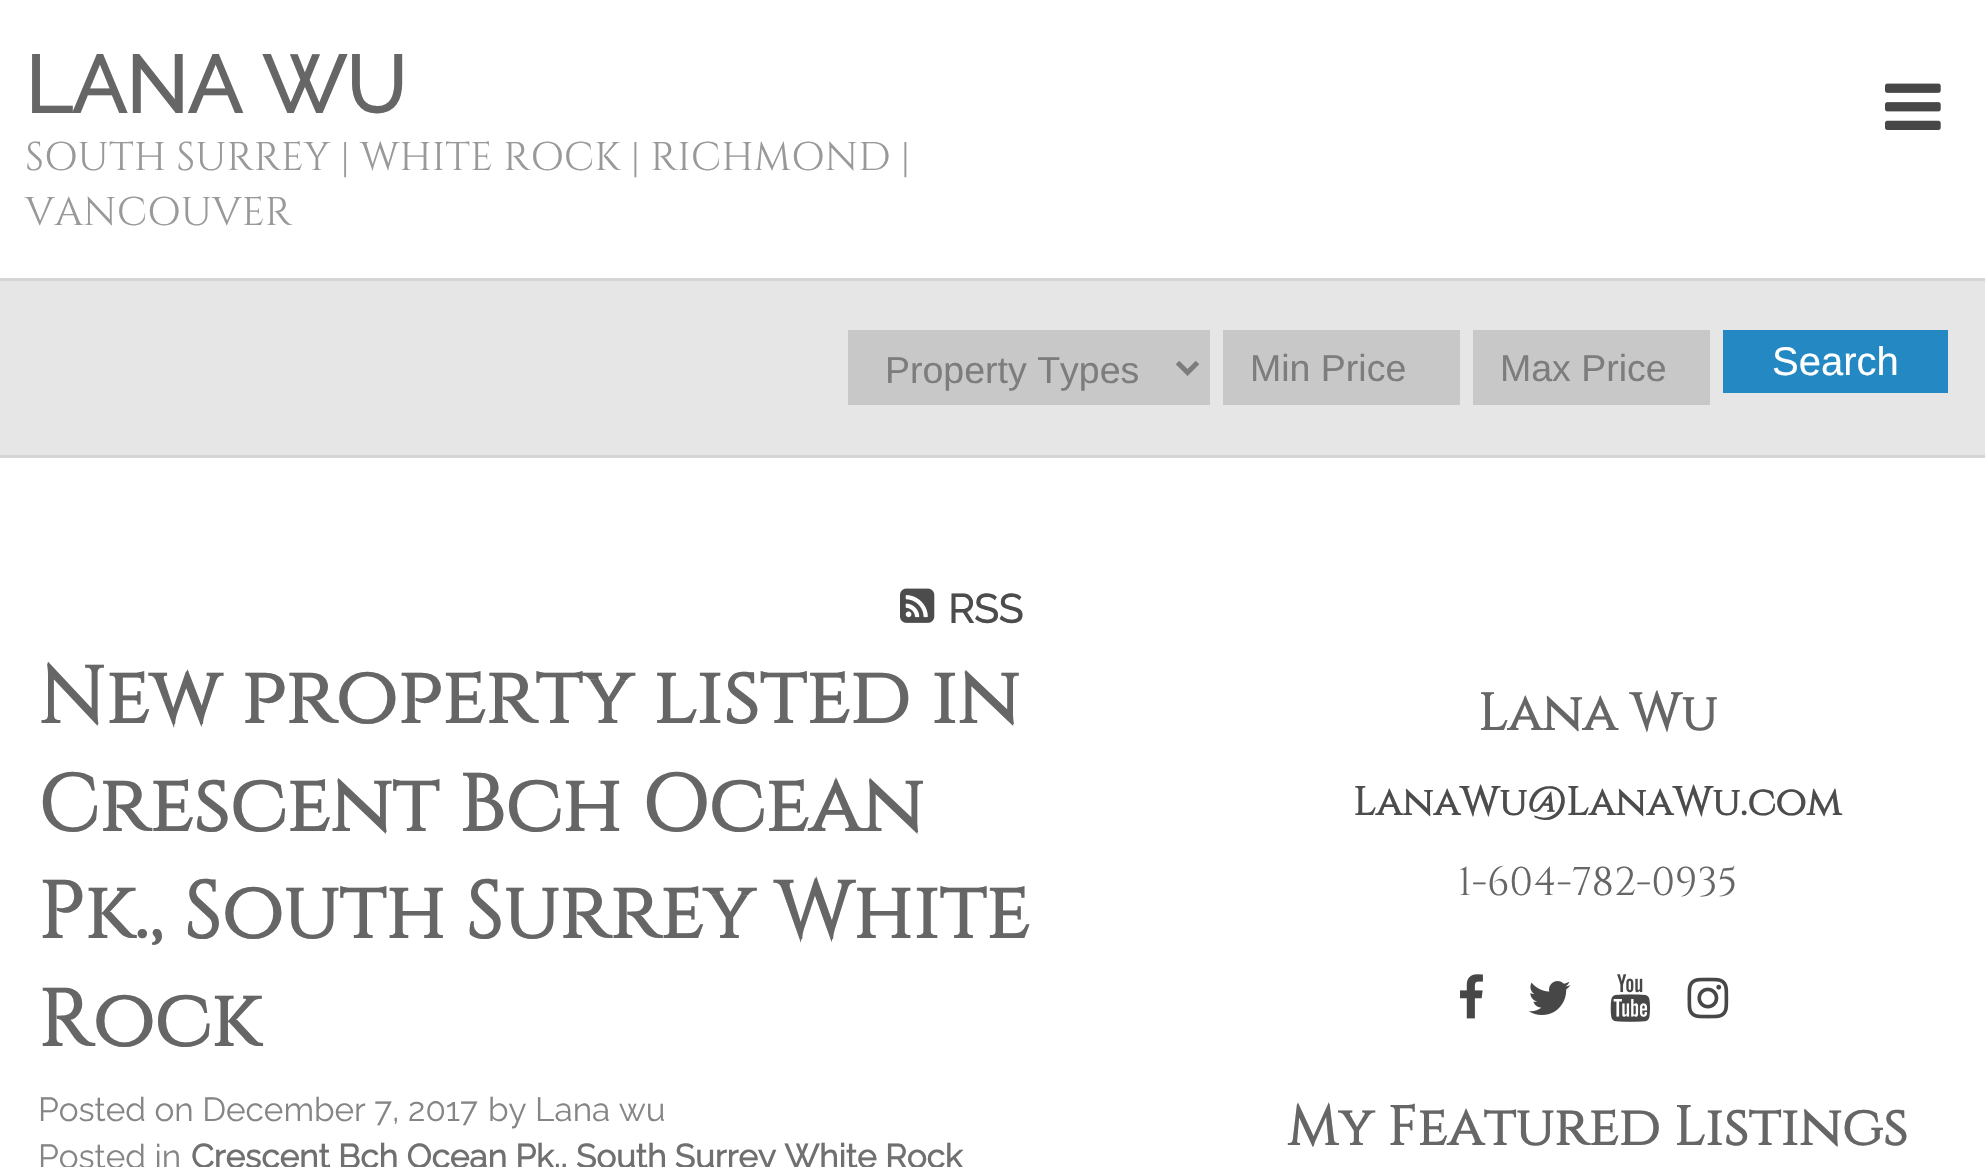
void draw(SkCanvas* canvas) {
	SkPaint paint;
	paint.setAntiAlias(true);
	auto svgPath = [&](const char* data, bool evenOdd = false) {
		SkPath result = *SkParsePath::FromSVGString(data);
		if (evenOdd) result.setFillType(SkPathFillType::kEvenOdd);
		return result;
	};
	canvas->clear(0xffffffff);
	SkFont f1(fontMgr->matchFamilyStyle("Raleway", SkFontStyle::Bold()), 80);
	f1.setSubpixel(true);
	paint.setColor(0xff666666);
	canvas->drawString("LANA WU", 25, 113, f1, paint);
	SkFont f2(fontMgr->matchFamilyStyle("Cinzel", SkFontStyle::Normal()), 40);
	f2.setSubpixel(true);
	paint.setColor(0xff999999);
	canvas->drawString("SOUTH SURREY | WHITE ROCK | RICHMOND |", 25, 170, f2, paint);
	canvas->drawString("VANCOUVER", 25, 225, f2, paint);
	canvas->drawImageRect(SkImages::DeferredFromEncodedData(SkData::MakeFromFileName("img1.png")), SkRect::MakeXYWH(1885, 83, 56, 47), SkSamplingOptions());
	paint.setColor(0xffe6e6e6);
	canvas->drawRect(SkRect::MakeXYWH(0, 281, 1985, 174), paint);
	paint.setColor(0xffd5d5d5);
	canvas->drawRect(SkRect::MakeXYWH(0, 278, 1985, 3), paint);
	canvas->drawRect(SkRect::MakeXYWH(0, 455, 1985, 3), paint);
	paint.setColor(0xffc8c8c8);
	canvas->drawRect(SkRect::MakeXYWH(848, 330, 362, 75), paint);
	paint.setStroke(true);
	paint.setStrokeWidth(5);
	paint.setColor(0xff7d7d7d);
	canvas->drawPath(svgPath("M1177.5 362.5L1187.5 372.5L1197.5 362.5"), paint);
	SkFont f3(fontMgr->matchFamilyStyle("Liberation Sans", SkFontStyle::Normal()), 37.5);
	f3.setSubpixel(true);
	paint.setStroke(false);
	canvas->drawString("Property Types", 885, 383, f3, paint);
	paint.setColor(0xffc8c8c8);
	canvas->drawRect(SkRect::MakeXYWH(1223, 330, 237, 75), paint);
	paint.setColor(0xff7d7d7d);
	canvas->drawString("Min Price", 1250, 381, f3, paint);
	paint.setColor(0xffc8c8c8);
	canvas->drawRect(SkRect::MakeXYWH(1473, 330, 237, 75), paint);
	paint.setColor(0xff7d7d7d);
	canvas->drawString("Max Price", 1500, 381, f3, paint);
	paint.setColor(0xff2489c3);
	canvas->drawRect(SkRect::MakeXYWH(1723, 330, 225, 63), paint);
	SkFont f4(fontMgr->matchFamilyStyle("Liberation Sans", SkFontStyle::Normal()), 40);
	f4.setSubpixel(true);
	paint.setColor(0xffffffff);
	canvas->drawString("Search", 1772, 375, f4, paint);
	canvas->drawImageRect(SkImages::DeferredFromEncodedData(SkData::MakeFromFileName("img2.png")), SkRect::MakeXYWH(900, 588, 35, 35), SkSamplingOptions());
	SkFont f5(fontMgr->matchFamilyStyle("Raleway", SkFontStyle::Bold()), 40);
	f5.setSubpixel(true);
	paint.setColor(0xff4c4c4c);
	canvas->drawString("RSS", 948, 623, f5, paint);
	SkFont f6(fontMgr->matchFamilyStyle("Cinzel", SkFontStyle::Bold()), 80);
	f6.setSubpixel(true);
	paint.setColor(0xff666666);
	canvas->drawString("New property listed in", 38, 723, f6, paint);
	canvas->drawString("Crescent Bch Ocean", 38, 831, f6, paint);
	canvas->drawString("Pk., South Surrey White", 38, 938, f6, paint);
	canvas->drawString("Rock", 38, 1046, f6, paint);
	SkFont f7(fontMgr->matchFamilyStyle("Raleway", SkFontStyle(100, SkFontStyle::kNormal_Width, SkFontStyle::kUpright_Slant)), 33.3);
	f7.setSubpixel(true);
	paint.setColor(0xff858585);
	canvas->drawString("Posted on December 7, 2017", 38, 1121, f7, paint);
	canvas->drawString("by Lana wu", 488, 1121, f7, paint);
	canvas->drawString("Posted in", 38, 1168, f7, paint);
	SkFont f8(fontMgr->matchFamilyStyle("Raleway", SkFontStyle::Bold()), 33.3);
	f8.setSubpixel(true);
	paint.setColor(0xff707070);
	canvas->drawString("Crescent Bch Ocean Pk., South Surrey White Rock", 191, 1168, f8, paint);
	SkFont f9(fontMgr->matchFamilyStyle("Cinzel", SkFontStyle::Bold()), 52);
	f9.setSubpixel(true);
	paint.setColor(0xff666666);
	canvas->drawString("Lana Wu", 1478, 730, f9, paint);
	SkFont f10(fontMgr->matchFamilyStyle("Cinzel", SkFontStyle::Bold()), 40);
	f10.setSubpixel(true);
	paint.setColor(0xff4c4c4c);
	canvas->drawString("LanaWu@LanaWu.com", 1353, 815, f10, paint);
	paint.setColor(0xff666666);
	canvas->drawString("1-604-782-0935", 1458, 895, f2, paint);
	canvas->drawImageRect(SkImages::DeferredFromEncodedData(SkData::MakeFromFileName("img3.png")), SkRect::MakeXYWH(1460, 974, 23, 45), SkSamplingOptions());
	canvas->drawImageRect(SkImages::DeferredFromEncodedData(SkData::MakeFromFileName("img4.png")), SkRect::MakeXYWH(1528, 981, 43, 34), SkSamplingOptions());
	canvas->drawImageRect(SkImages::DeferredFromEncodedData(SkData::MakeFromFileName("img5.png")), SkRect::MakeXYWH(1610, 974, 40, 48), SkSamplingOptions());
	canvas->drawImageRect(SkImages::DeferredFromEncodedData(SkData::MakeFromFileName("img6.png")), SkRect::MakeXYWH(1687, 977, 42, 42), SkSamplingOptions());
	SkFont f11(fontMgr->matchFamilyStyle("Cinzel", SkFontStyle::Bold()), 55);
	f11.setSubpixel(true);
	canvas->drawString("My Featured Listings", 1287, 1145, f11, paint);
}
